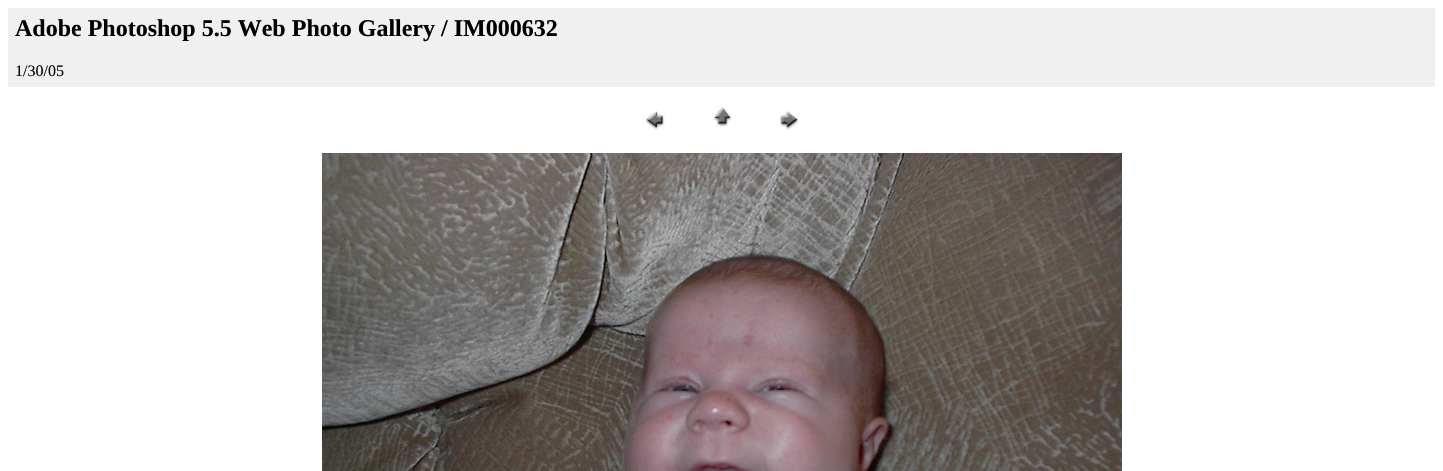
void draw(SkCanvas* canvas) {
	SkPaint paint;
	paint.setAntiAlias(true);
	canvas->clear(0xffffffff);
	paint.setColor(0xfff0f0f0);
	canvas->drawRect(SkRect::MakeXYWH(8, 8, 1427, 79), paint);
	SkFont f1(fontMgr->matchFamilyStyle("Liberation Serif", SkFontStyle::Bold()), 24);
	f1.setSubpixel(true);
	paint.setColor(0xff000000);
	canvas->drawString("Adobe Photoshop 5.5 Web Photo Gallery / IM000632", 15, 36, f1, paint);
	SkFont f2(fontMgr->matchFamilyStyle("Liberation Serif", SkFontStyle::Normal()), 16);
	f2.setSubpixel(true);
	canvas->drawString("1/30/05", 15, 76, f2, paint);
	canvas->drawImageRect(SkImages::DeferredFromEncodedData(SkData::MakeFromFileName("img1.png")), SkRect::MakeXYWH(645, 111, 20, 19), SkSamplingOptions());
	canvas->drawImageRect(SkImages::DeferredFromEncodedData(SkData::MakeFromFileName("img2.png")), SkRect::MakeXYWH(713, 107, 19, 20), SkSamplingOptions());
	canvas->drawImageRect(SkImages::DeferredFromEncodedData(SkData::MakeFromFileName("img3.png")), SkRect::MakeXYWH(779, 111, 20, 19), SkSamplingOptions());
	canvas->drawImageRect(SkImages::DeferredFromEncodedData(SkData::MakeFromFileName("img4.png")), SkRect::MakeXYWH(322, 153, 800, 318), SkSamplingOptions());
}
